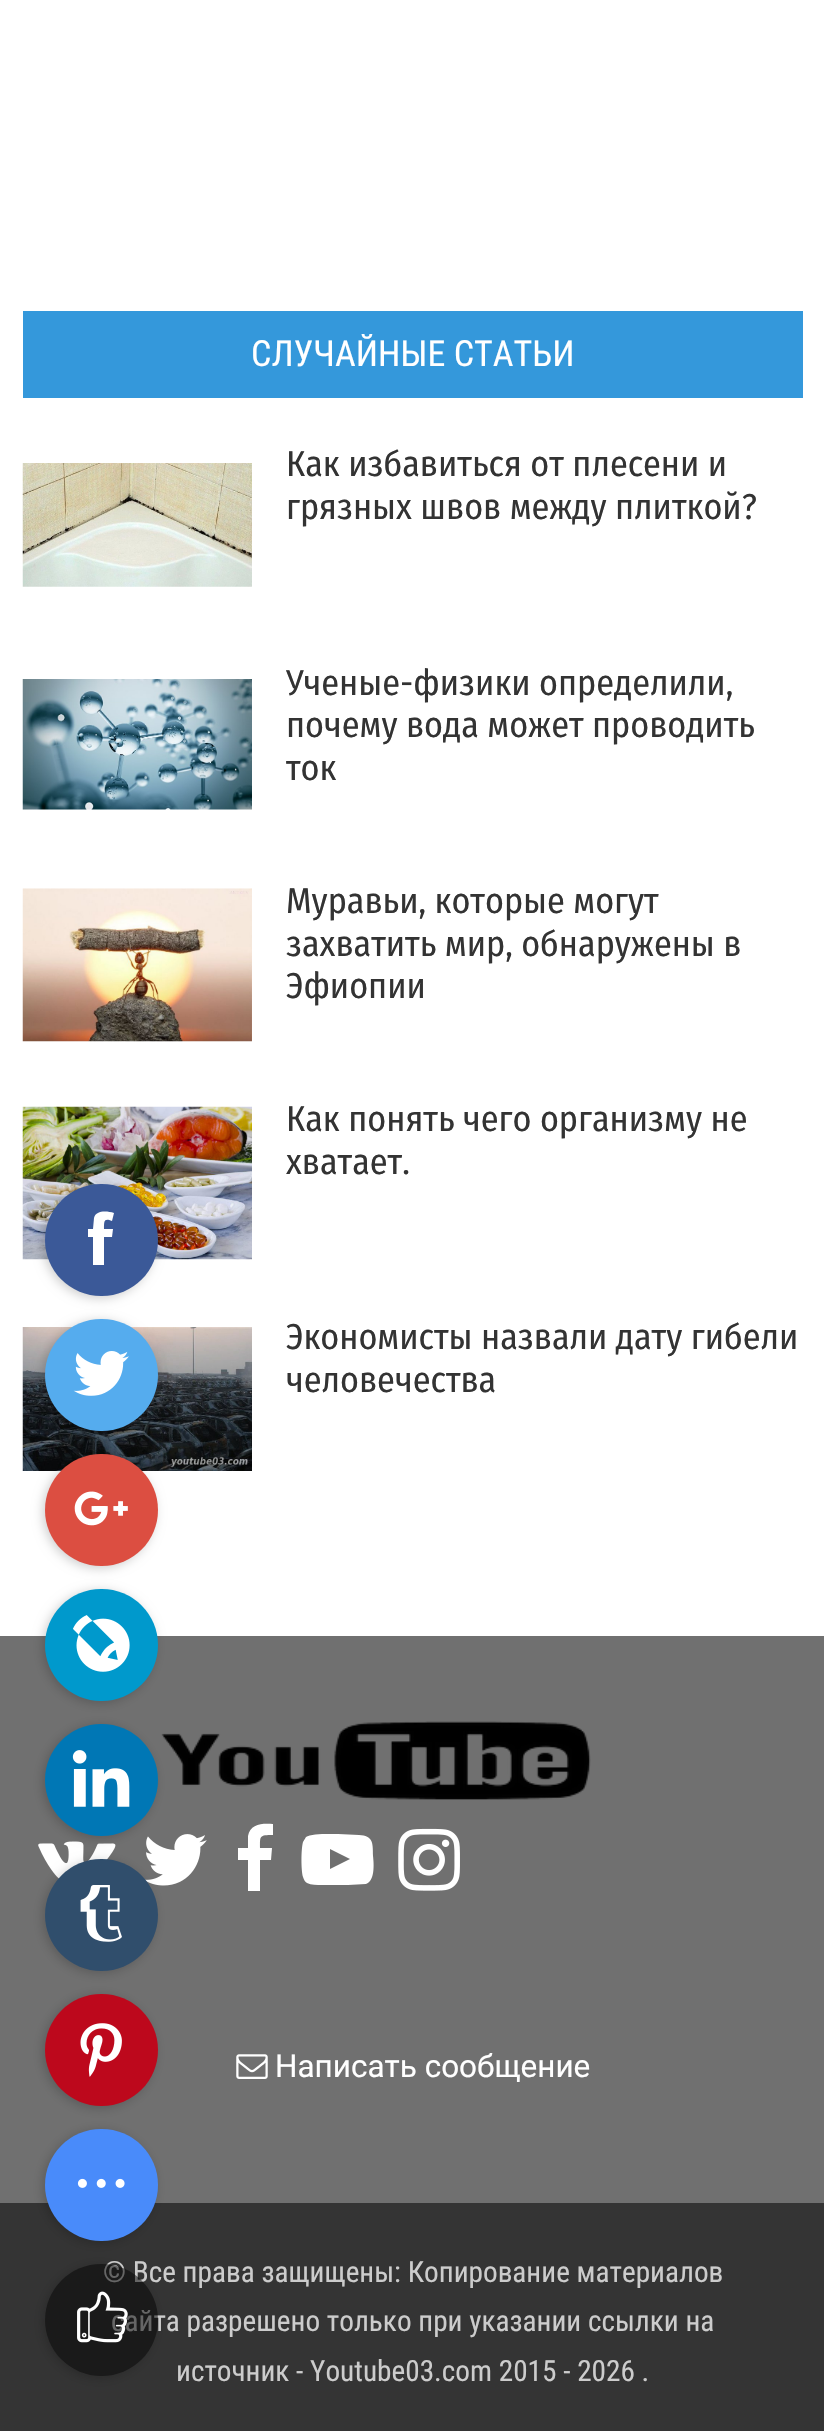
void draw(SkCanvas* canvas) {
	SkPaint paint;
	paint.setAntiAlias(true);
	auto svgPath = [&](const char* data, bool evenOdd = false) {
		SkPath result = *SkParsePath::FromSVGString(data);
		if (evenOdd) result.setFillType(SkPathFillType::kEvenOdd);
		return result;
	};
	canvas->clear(0xffffffff);
	paint.setColor(0xff3498db);
	canvas->drawRect(SkRect::MakeXYWH(23, 311, 780, 87), paint);
	SkFont f1(fontMgr->matchFamilyStyle("Roboto Condensed", SkFontStyle::Normal()), 36);
	f1.setSubpixel(true);
	paint.setColor(0xffffffff);
	canvas->drawString("СЛУЧАЙНЫЕ СТАТЬИ", 251, 366, f1, paint);
	canvas->drawImageRect(SkImages::DeferredFromEncodedData(SkData::MakeFromFileName("img1.png")), SkRect::MakeXYWH(22, 463, 230, 124), SkSamplingOptions());
	SkFont f2(fontMgr->matchFamilyStyle("Fira Sans Condensed", SkFontStyle::Normal()), 36);
	f2.setSubpixel(true);
	paint.setColor(0xff333333);
	canvas->drawString("Как избавиться от плесени и", 286, 476, f2, paint);
	canvas->drawString("грязных швов между плиткой?", 286, 519, f2, paint);
	canvas->drawImageRect(SkImages::DeferredFromEncodedData(SkData::MakeFromFileName("img2.png")), SkRect::MakeXYWH(22, 679, 230, 131), SkSamplingOptions());
	canvas->drawString("Ученые-физики определили,", 286, 695, f2, paint);
	canvas->drawString("почему вода может проводить", 286, 737, f2, paint);
	canvas->drawString("ток", 286, 780, f2, paint);
	canvas->drawImageRect(SkImages::DeferredFromEncodedData(SkData::MakeFromFileName("img3.png")), SkRect::MakeXYWH(22, 888, 230, 154), SkSamplingOptions());
	canvas->drawString("Муравьи, которые могут", 286, 913, f2, paint);
	canvas->drawString("захватить мир, обнаружены в", 286, 956, f2, paint);
	canvas->drawString("Эфиопии", 286, 998, f2, paint);
	canvas->drawImageRect(SkImages::DeferredFromEncodedData(SkData::MakeFromFileName("img4.png")), SkRect::MakeXYWH(22, 1106, 230, 154), SkSamplingOptions());
	canvas->drawString("Как понять чего организму не", 286, 1131, f2, paint);
	canvas->drawString("хватает.", 286, 1174, f2, paint);
	canvas->drawImageRect(SkImages::DeferredFromEncodedData(SkData::MakeFromFileName("img5.png")), SkRect::MakeXYWH(22, 1327, 230, 144), SkSamplingOptions());
	canvas->drawString("Экономисты назвали дату гибели", 286, 1349, f2, paint);
	canvas->drawString("человечества", 286, 1392, f2, paint);
	paint.setColor(0x33000000);
	paint.setMaskFilter(SkMaskFilter::MakeBlur(kNormal_SkBlurStyle, 5.5));
	canvas->drawRoundRect(SkRect::MakeXYWH(43, 1186, 112, 112), 56, 56, paint);
	paint.setMaskFilter(nullptr);
	paint.setColor(0xff3b5998);
	canvas->drawRoundRect(SkRect::MakeXYWH(45, 1184, 113, 112), 56, 56, paint);
	paint.setColor(0xffffffff);
	canvas->drawPath(svgPath("M88 1229H93L94 1218C96 1210 107 1211 114 1213L112 1221C104 1218 104 1221 104 1229H113L112 1237H104V1265H93V1237H88Z"), paint);
	paint.setColor(0x33000000);
	paint.setMaskFilter(SkMaskFilter::MakeBlur(kNormal_SkBlurStyle, 5.5));
	canvas->drawRoundRect(SkRect::MakeXYWH(43, 1321, 112, 112), 56, 56, paint);
	paint.setMaskFilter(nullptr);
	paint.setColor(0xff55acee);
	canvas->drawRoundRect(SkRect::MakeXYWH(45, 1319, 113, 112), 56, 56, paint);
	canvas->drawImageRect(SkImages::DeferredFromEncodedData(SkData::MakeFromFileName("img6.png")), SkRect::MakeXYWH(73, 1351, 56, 45), SkSamplingOptions());
	paint.setColor(0x33000000);
	paint.setMaskFilter(SkMaskFilter::MakeBlur(kNormal_SkBlurStyle, 5.5));
	canvas->drawRoundRect(SkRect::MakeXYWH(43, 1456, 112, 112), 56, 56, paint);
	paint.setMaskFilter(nullptr);
	paint.setColor(0xffdc4e41);
	canvas->drawRoundRect(SkRect::MakeXYWH(45, 1454, 113, 112), 56, 56, paint);
	canvas->drawImageRect(SkImages::DeferredFromEncodedData(SkData::MakeFromFileName("img7.png")), SkRect::MakeXYWH(74, 1491, 54, 35), SkSamplingOptions());
	paint.setColor(0xff707070);
	canvas->drawRect(SkRect::MakeXYWH(0, 1636, 824, 567), paint);
	paint.setColor(0x33000000);
	paint.setMaskFilter(SkMaskFilter::MakeBlur(kNormal_SkBlurStyle, 5.5));
	canvas->drawRoundRect(SkRect::MakeXYWH(43, 1591, 112, 112), 56, 56, paint);
	paint.setMaskFilter(nullptr);
	paint.setColor(0xff0099cc);
	canvas->drawRoundRect(SkRect::MakeXYWH(45, 1589, 113, 112), 56, 56, paint);
	canvas->drawImageRect(SkImages::DeferredFromEncodedData(SkData::MakeFromFileName("img8.png")), SkRect::MakeXYWH(73, 1615, 57, 57), SkSamplingOptions());
	canvas->drawImageRect(SkImages::DeferredFromEncodedData(SkData::MakeFromFileName("img14.png")), SkRect::MakeXYWH(161, 1721, 430, 79), SkSamplingOptions());
	canvas->drawImageRect(SkImages::DeferredFromEncodedData(SkData::MakeFromFileName("img15.png")), SkRect::MakeXYWH(38, 1841, 78, 38), SkSamplingOptions());
	canvas->drawImageRect(SkImages::DeferredFromEncodedData(SkData::MakeFromFileName("img16.png")), SkRect::MakeXYWH(144, 1834, 63, 52), SkSamplingOptions());
	paint.setColor(0x33000000);
	paint.setMaskFilter(SkMaskFilter::MakeBlur(kNormal_SkBlurStyle, 5.5));
	canvas->drawRoundRect(SkRect::MakeXYWH(43, 1726, 112, 112), 56, 56, paint);
	paint.setMaskFilter(nullptr);
	paint.setColor(0xff0077b5);
	canvas->drawRoundRect(SkRect::MakeXYWH(45, 1724, 113, 112), 56, 56, paint);
	canvas->drawImageRect(SkImages::DeferredFromEncodedData(SkData::MakeFromFileName("img9.png")), SkRect::MakeXYWH(72, 1750, 58, 57), SkSamplingOptions());
	paint.setColor(0x33000000);
	paint.setMaskFilter(SkMaskFilter::MakeBlur(kNormal_SkBlurStyle, 5.5));
	canvas->drawRoundRect(SkRect::MakeXYWH(43, 1861, 112, 112), 56, 56, paint);
	paint.setMaskFilter(nullptr);
	paint.setColor(0xff304e6c);
	canvas->drawRoundRect(SkRect::MakeXYWH(45, 1859, 113, 112), 56, 56, paint);
	canvas->drawImageRect(SkImages::DeferredFromEncodedData(SkData::MakeFromFileName("img10.png")), SkRect::MakeXYWH(80, 1885, 42, 57), SkSamplingOptions());
	paint.setColor(0x33000000);
	paint.setMaskFilter(SkMaskFilter::MakeBlur(kNormal_SkBlurStyle, 5.5));
	canvas->drawRoundRect(SkRect::MakeXYWH(43, 1996, 112, 112), 56, 56, paint);
	paint.setMaskFilter(nullptr);
	paint.setColor(0xffbd081c);
	canvas->drawRoundRect(SkRect::MakeXYWH(45, 1994, 113, 112), 56, 56, paint);
	canvas->drawImageRect(SkImages::DeferredFromEncodedData(SkData::MakeFromFileName("img11.png")), SkRect::MakeXYWH(80, 2023, 42, 54), SkSamplingOptions());
	paint.setColor(0xff343434);
	canvas->drawRect(SkRect::MakeXYWH(0, 2203, 824, 228), paint);
	paint.setColor(0x33000000);
	paint.setMaskFilter(SkMaskFilter::MakeBlur(kNormal_SkBlurStyle, 5.5));
	canvas->drawRoundRect(SkRect::MakeXYWH(43, 2131, 112, 112), 56, 56, paint);
	paint.setMaskFilter(nullptr);
	paint.setColor(0xff498bfa);
	canvas->drawRoundRect(SkRect::MakeXYWH(45, 2129, 113, 112), 56, 56, paint);
	canvas->drawImageRect(SkImages::DeferredFromEncodedData(SkData::MakeFromFileName("img12.png")), SkRect::MakeXYWH(77, 2178, 48, 10), SkSamplingOptions());
	canvas->save();
	canvas->clipPath(svgPath("M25 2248H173V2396H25ZM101 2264H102C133 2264 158 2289 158 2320C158 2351 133 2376 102 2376H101C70 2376 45 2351 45 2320C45 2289 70 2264 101 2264Z", true), true);
	paint.setColor(0x33000000);
	paint.setMaskFilter(SkMaskFilter::MakeBlur(kNormal_SkBlurStyle, 5.5));
	canvas->drawRoundRect(SkRect::MakeXYWH(43, 2266, 112, 112), 56, 56, paint);
	paint.setMaskFilter(nullptr);
	canvas->restore();
	SkFont f3(fontMgr->matchFamilyStyle("Roboto Condensed", SkFontStyle::Normal()), 29.25);
	f3.setSubpixel(true);
	paint.setColor(0xffcccccc);
	canvas->drawString("© Все права защищены: Копирование материалов", 103, 2282, f3, paint);
	canvas->drawString("сайта разрешено только при указании ссылки на", 111, 2331, f3, paint);
	paint.setColor(0x80000000);
	canvas->drawRoundRect(SkRect::MakeXYWH(45, 2264, 113, 112), 56, 56, paint);
	canvas->drawImageRect(SkImages::DeferredFromEncodedData(SkData::MakeFromFileName("img13.png")), SkRect::MakeXYWH(77, 2291, 51, 52), SkSamplingOptions());
	paint.setColor(0xffffffff);
	canvas->drawPath(svgPath("M273 1824C262 1823 250 1824 248 1836V1848H238V1860H248V1891H260V1860H271L272 1848H260C260 1836 259 1835 273 1835Z"), paint);
	canvas->drawPath(svgPath("M330 1869V1849L350 1859ZM338 1834C333 1834 311 1833 306 1837C305 1839 304 1840 303 1842C301 1849 301 1870 303 1877C304 1880 305 1882 307 1883C311 1885 317 1885 322 1885H348L366 1884C375 1881 374 1864 373 1856C373 1842 373 1836 359 1835Z"), paint);
	canvas->drawImageRect(SkImages::DeferredFromEncodedData(SkData::MakeFromFileName("img17.png")), SkRect::MakeXYWH(398, 1828, 62, 63), SkSamplingOptions());
	canvas->drawImageRect(SkImages::DeferredFromEncodedData(SkData::MakeFromFileName("img18.png")), SkRect::MakeXYWH(236, 2054, 32, 25), SkSamplingOptions());
	SkFont f4(fontMgr->matchFamilyStyle("Roboto", SkFontStyle::Normal()), 31.5);
	f4.setSubpixel(true);
	canvas->drawString("Написать сообщение", 275, 2077, f4, paint);
	paint.setColor(0xffcccccc);
	canvas->drawString("источник - Youtube03.com 2015 - 2026 .", 176, 2381, f3, paint);
}
